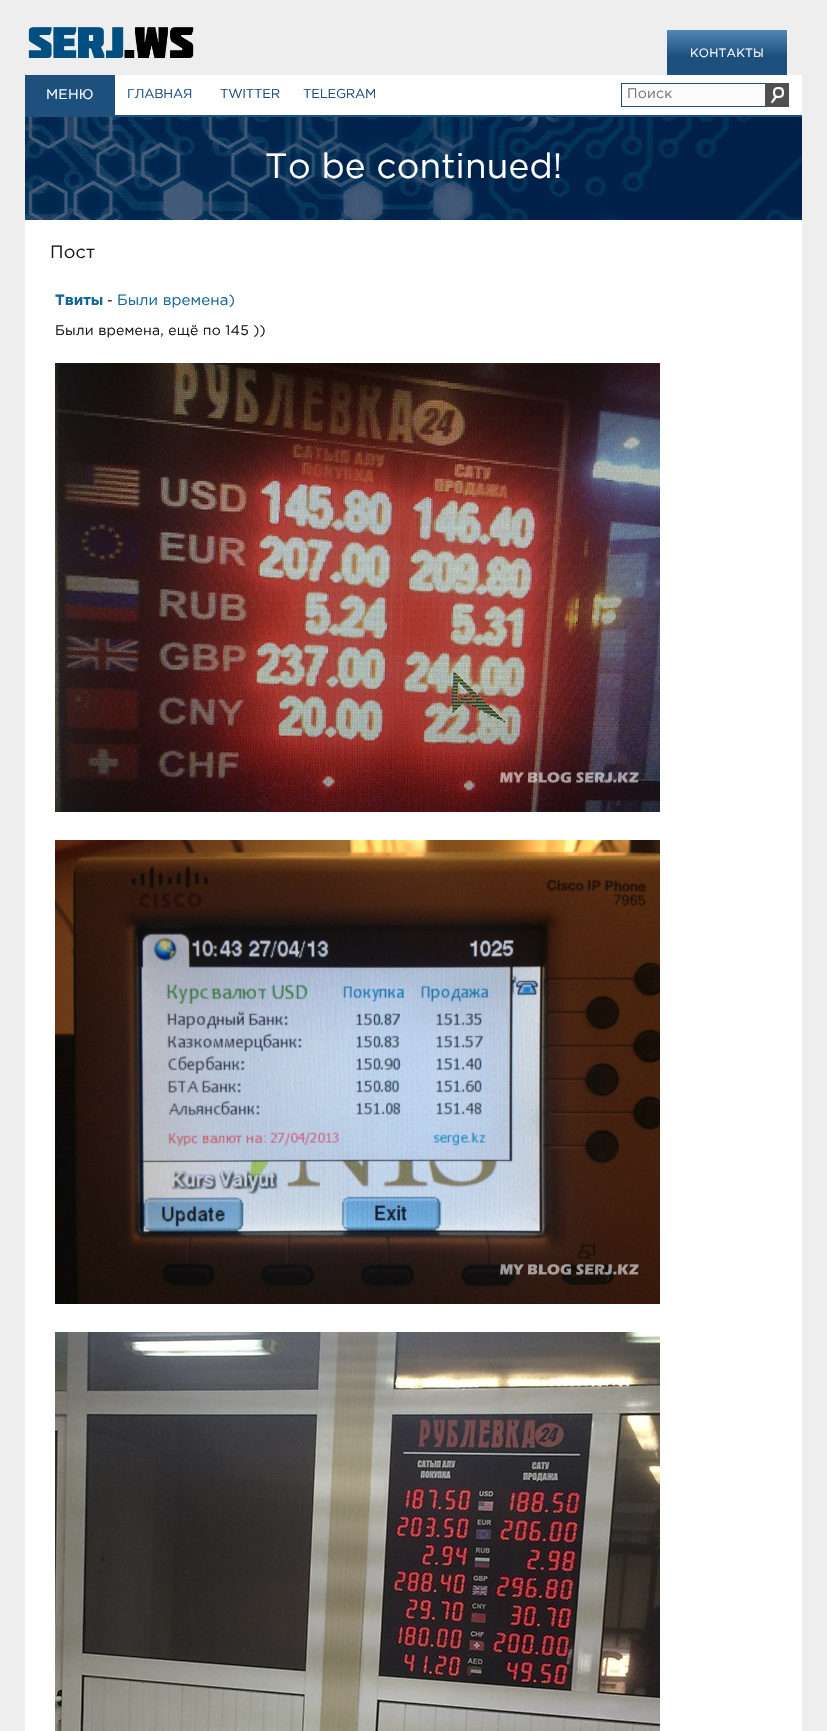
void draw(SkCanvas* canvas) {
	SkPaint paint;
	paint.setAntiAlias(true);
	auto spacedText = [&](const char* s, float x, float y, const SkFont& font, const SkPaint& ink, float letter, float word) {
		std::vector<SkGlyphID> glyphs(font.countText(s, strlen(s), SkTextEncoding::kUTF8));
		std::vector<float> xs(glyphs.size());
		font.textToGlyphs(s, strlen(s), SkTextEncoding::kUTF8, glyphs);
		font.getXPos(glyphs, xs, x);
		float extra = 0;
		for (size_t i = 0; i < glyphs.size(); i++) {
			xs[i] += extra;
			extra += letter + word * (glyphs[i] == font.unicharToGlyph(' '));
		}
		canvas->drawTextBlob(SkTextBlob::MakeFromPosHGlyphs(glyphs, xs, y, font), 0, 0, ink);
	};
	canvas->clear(0xffeeeeee);
	canvas->drawImageRect(SkImages::DeferredFromEncodedData(SkData::MakeFromFileName("img1.png")), SkRect::MakeXYWH(28, 27, 166, 31), SkSamplingOptions());
	{
		const SkColor colors[] = {0xff5587b5, 0xff1e507e};
		const float stops[] = {0, 0.58};
		const SkPoint ends[] = {{727, 30}, {727, 75}};
		paint.setShader(SkGradientShader::MakeLinear(ends, colors, stops, 2, SkTileMode::kClamp));
		paint.setAlpha(255);
	}
	canvas->drawRect(SkRect::MakeXYWH(667, 30, 120, 45), paint);
	SkFont f1(fontMgr->matchFamilyStyle("Gotham", SkFontStyle::Normal()), 12);
	f1.setSubpixel(true);
	paint.setShader(nullptr);
	paint.setColor(0xffffffff);
	spacedText("КОНТАКТЫ", 690, 57, f1, paint, 0.2, 0);
	canvas->drawRect(SkRect::MakeXYWH(25, 75, 777, 1656), paint);
	paint.setColor(0xff1e507e);
	canvas->drawRect(SkRect::MakeXYWH(25, 75, 90, 40), paint);
	SkFont f2(fontMgr->matchFamilyStyle("Gotham", SkFontStyle::Normal()), 14);
	f2.setSubpixel(true);
	paint.setColor(0xffffffff);
	spacedText("МЕНЮ", 46, 99, f2, paint, 0.2, 0);
	SkFont f3(fontMgr->matchFamilyStyle("Gotham", SkFontStyle::Normal()), 13);
	f3.setSubpixel(true);
	paint.setColor(0xff1e507e);
	spacedText("ГЛАВНАЯ", 127, 98, f3, paint, -0.25, 0);
	spacedText("TWITTER", 220, 98, f3, paint, -0.25, 0);
	spacedText("TELEGRAM", 303, 98, f3, paint, -0.25, 0);
	paint.setColor(0xfffbfbfb);
	canvas->drawRect(SkRect::MakeXYWH(622, 84, 143, 22), paint);
	paint.setStroke(true);
	paint.setStrokeWidth(1);
	paint.setColor(0xff1e507e);
	canvas->drawRect(SkRect::MakeXYWH(621.5, 83.5, 149, 23), paint);
	paint.setStroke(false);
	paint.setColor(0xff757575);
	spacedText("Поиск", 627, 98, f2, paint, 0.2, 0);
	canvas->drawImageRect(SkImages::DeferredFromEncodedData(SkData::MakeFromFileName("img2.png")), SkRect::MakeXYWH(765, 83, 24, 24), SkSamplingOptions());
	paint.setColor(0xff1e507e);
	canvas->drawRect(SkRect::MakeXYWH(25, 115, 777, 2), paint);
	canvas->drawImageRect(SkImages::DeferredFromEncodedData(SkData::MakeFromFileName("img3.png")), SkRect::MakeXYWH(25, 117, 777, 103), SkSamplingOptions());
	SkFont f4(fontMgr->matchFamilyStyle("Gotham", SkFontStyle::Normal()), 35);
	f4.setSubpixel(true);
	paint.setColor(0xffffffff);
	spacedText("To be continued!", 265, 178, f4, paint, 0.2, 0);
	SkFont f5(fontMgr->matchFamilyStyle("Gotham", SkFontStyle::Normal()), 18);
	f5.setSubpixel(true);
	paint.setColor(0xff1a1a1a);
	spacedText("Пост", 50, 258, f5, paint, 0.2, 0);
	SkFont f6(fontMgr->matchFamilyStyle("Gotham", SkFontStyle::Bold()), 15);
	f6.setSubpixel(true);
	paint.setColor(0xff116796);
	canvas->drawString("Твиты", 55, 305, f6, paint);
	paint.setColor(0xff1a1a1a);
	spacedText("-", 107, 305, f2, paint, 0.2, 0);
	SkFont f7(fontMgr->matchFamilyStyle("Gotham", SkFontStyle::Normal()), 15);
	f7.setSubpixel(true);
	paint.setColor(0xff116796);
	spacedText("Были времена)", 117, 305, f7, paint, 0.1, 0);
	paint.setColor(0xff1a1a1a);
	spacedText("Были времена, ещё по 145 ))", 55, 335, f2, paint, 0.2, 0);
	canvas->drawImageRect(SkImages::DeferredFromEncodedData(SkData::MakeFromFileName("img4.png")), SkRect::MakeXYWH(55, 363, 605, 449), SkSamplingOptions());
	canvas->drawImageRect(SkImages::DeferredFromEncodedData(SkData::MakeFromFileName("img5.png")), SkRect::MakeXYWH(55, 840, 605, 464), SkSamplingOptions());
	canvas->drawImageRect(SkImages::DeferredFromEncodedData(SkData::MakeFromFileName("img6.png")), SkRect::MakeXYWH(55, 1332, 605, 399), SkSamplingOptions());
}
